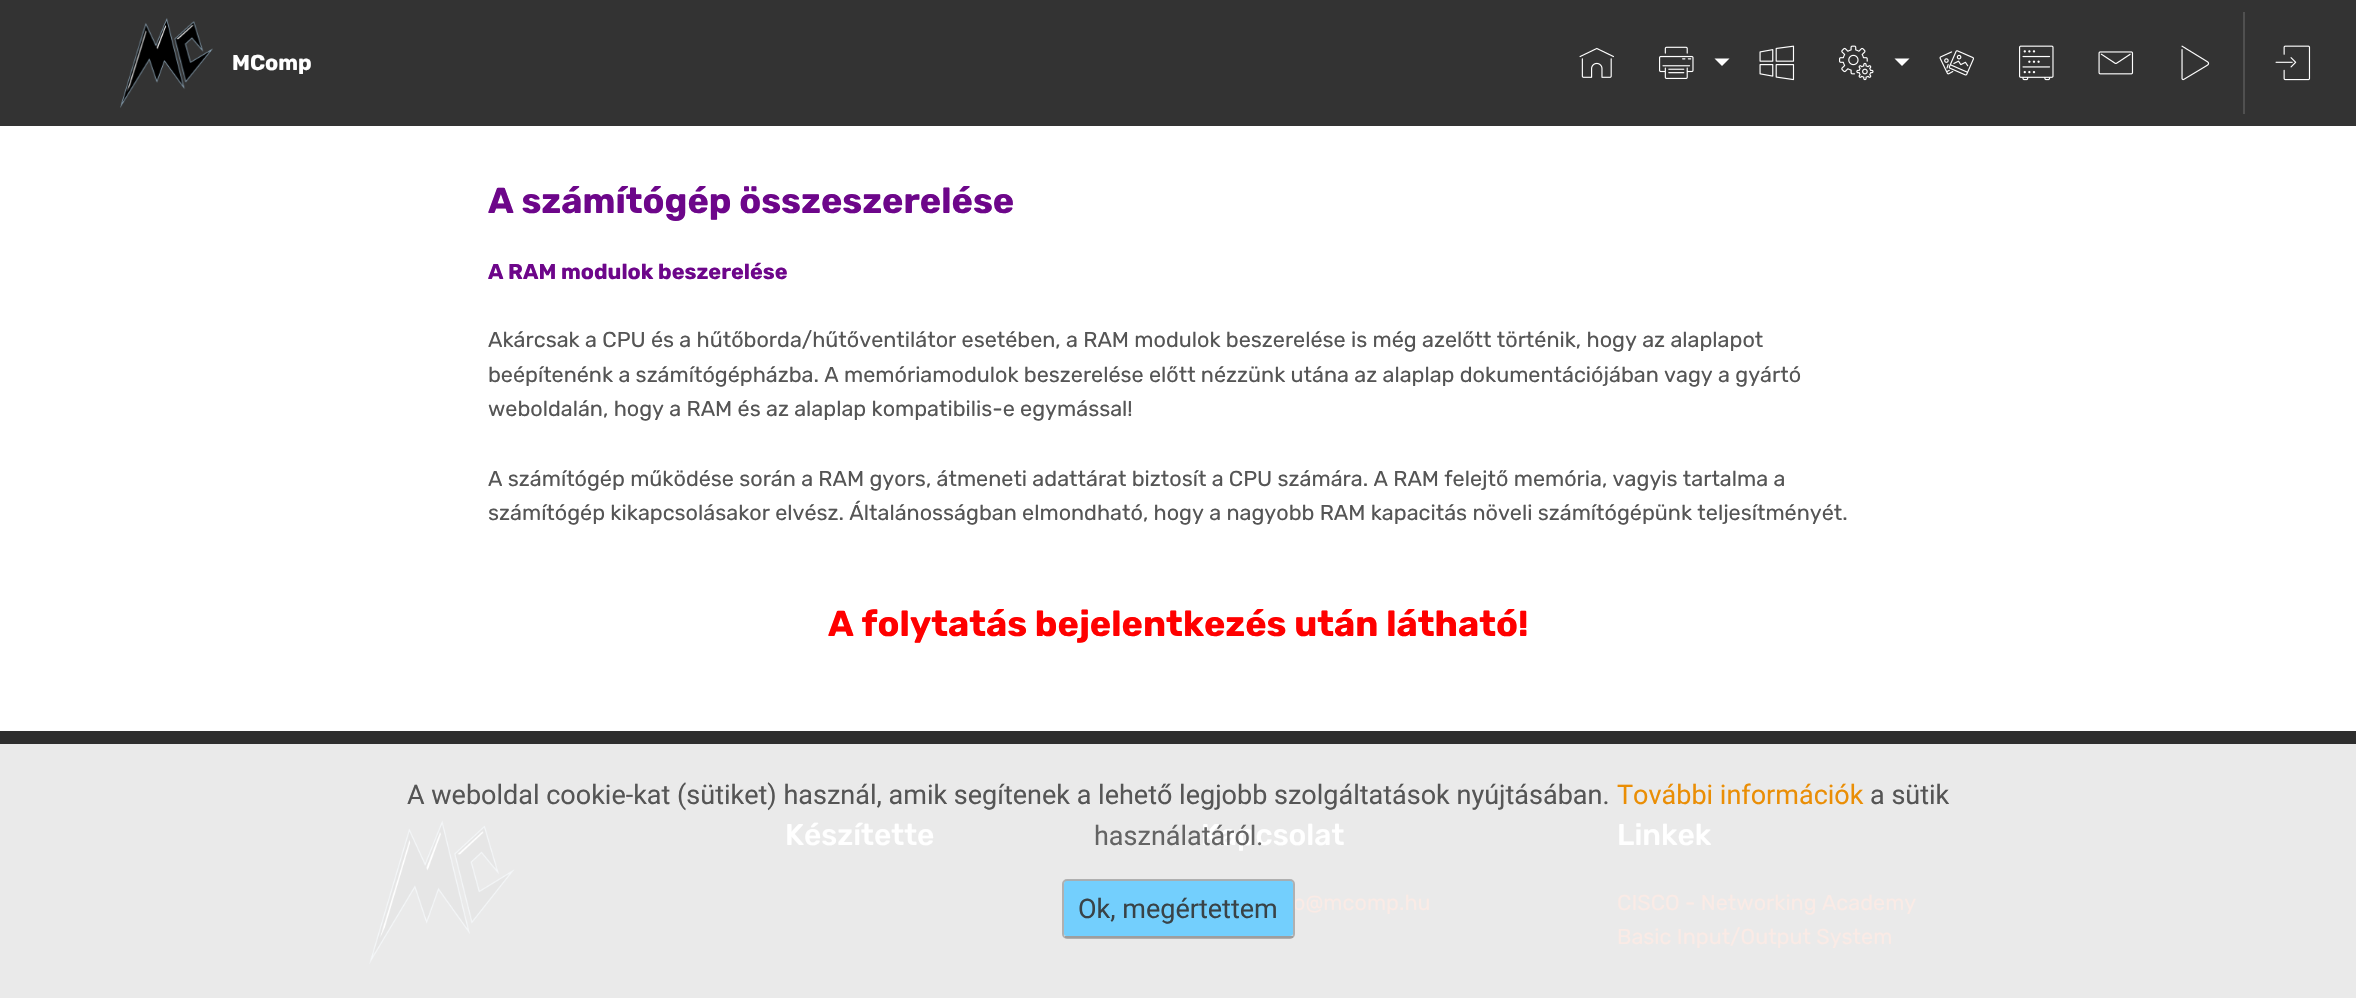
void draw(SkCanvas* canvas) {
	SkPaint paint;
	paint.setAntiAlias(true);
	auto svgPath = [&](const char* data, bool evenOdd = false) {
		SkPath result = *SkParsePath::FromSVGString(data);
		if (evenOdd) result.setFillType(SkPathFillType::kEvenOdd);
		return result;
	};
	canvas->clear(0xffffffff);
	paint.setColor(0xff333333);
	canvas->drawRect(SkRect::MakeXYWH(0, 0, 2356, 126), paint);
	canvas->drawImageRect(SkImages::DeferredFromEncodedData(SkData::MakeFromFileName("img1.png")), SkRect::MakeXYWH(120, 18, 93, 90), SkSamplingOptions());
	SkFont f1(fontMgr->matchFamilyStyle("Rubik", SkFontStyle::Bold()), 21.6);
	f1.setSubpixel(true);
	paint.setColor(0xffffffff);
	canvas->drawString("MComp", 232, 70, f1, paint);
	canvas->drawImageRect(SkImages::DeferredFromEncodedData(SkData::MakeFromFileName("img2.png")), SkRect::MakeXYWH(1579, 47, 35, 31), SkSamplingOptions());
	canvas->drawImageRect(SkImages::DeferredFromEncodedData(SkData::MakeFromFileName("img3.png")), SkRect::MakeXYWH(1659, 46, 35, 33), SkSamplingOptions());
	canvas->drawPath(svgPath("M1714.5 58.5H1729.5L1722 66Z"), paint);
	canvas->drawImageRect(SkImages::DeferredFromEncodedData(SkData::MakeFromFileName("img4.png")), SkRect::MakeXYWH(1759, 45, 36, 36), SkSamplingOptions());
	canvas->drawImageRect(SkImages::DeferredFromEncodedData(SkData::MakeFromFileName("img5.png")), SkRect::MakeXYWH(1839, 45, 35, 36), SkSamplingOptions());
	canvas->drawPath(svgPath("M1894.5 58.5H1909.5L1902 66Z"), paint);
	canvas->drawImageRect(SkImages::DeferredFromEncodedData(SkData::MakeFromFileName("img6.png")), SkRect::MakeXYWH(1939, 50, 35, 26), SkSamplingOptions());
	canvas->drawImageRect(SkImages::DeferredFromEncodedData(SkData::MakeFromFileName("img7.png")), SkRect::MakeXYWH(2019, 45, 35, 36), SkSamplingOptions());
	canvas->drawImageRect(SkImages::DeferredFromEncodedData(SkData::MakeFromFileName("img8.png")), SkRect::MakeXYWH(2098, 51, 36, 24), SkSamplingOptions());
	canvas->drawImageRect(SkImages::DeferredFromEncodedData(SkData::MakeFromFileName("img9.png")), SkRect::MakeXYWH(2181, 45, 29, 36), SkSamplingOptions());
	paint.setColor(0xff505050);
	canvas->drawRect(SkRect::MakeXYWH(2243, 12, 2, 102), paint);
	canvas->drawImageRect(SkImages::DeferredFromEncodedData(SkData::MakeFromFileName("img10.png")), SkRect::MakeXYWH(2275, 45, 36, 36), SkSamplingOptions());
	SkFont f2(fontMgr->matchFamilyStyle("Rubik", SkFontStyle::Bold()), 36);
	f2.setSubpixel(true);
	paint.setColor(0xff6d068a);
	canvas->drawString("A számítógép összeszerelése", 488, 213, f2, paint);
	canvas->drawString("A RAM modulok beszerelése", 488, 279, f1, paint);
	SkFont f3(fontMgr->matchFamilyStyle("Rubik", SkFontStyle::Normal()), 21.6);
	f3.setSubpixel(true);
	paint.setColor(0xff555555);
	canvas->drawString("Akárcsak a CPU és a hűtőborda/hűtőventilátor esetében, a RAM modulok beszerelése is még azelőtt történik, hogy az alaplapot", 488, 347, f3, paint);
	canvas->drawString("beépítenénk a számítógépházba. A memóriamodulok beszerelése előtt nézzünk utána az alaplap dokumentációjában vagy a gyártó", 488, 382, f3, paint);
	canvas->drawString("weboldalán, hogy a RAM és az alaplap kompatibilis-e egymással!", 488, 416, f3, paint);
	canvas->drawString("A számítógép működése során a RAM gyors, átmeneti adattárat biztosít a CPU számára. A RAM felejtő memória, vagyis tartalma a", 488, 486, f3, paint);
	canvas->drawString("számítógép kikapcsolásakor elvész. Általánosságban elmondható, hogy a nagyobb RAM kapacitás növeli számítógépünk teljesítményét.", 488, 520, f3, paint);
	paint.setColor(0xffff0000);
	canvas->drawString("A folytatás bejelentkezés után látható!", 828, 636, f2, paint);
	paint.setColor(0xffeaeaea);
	canvas->drawRect(SkRect::MakeXYWH(0, 744, 2356, 254), paint);
	SkFont f4(fontMgr->matchFamilyStyle("Roboto", SkFontStyle::Normal()), 27);
	f4.setSubpixel(true);
	paint.setColor(0xff555555);
	canvas->drawString("A weboldal cookie-kat (sütiket) használ, amik segítenek a lehető legjobb szolgáltatások nyújtásában.", 407, 804, f4, paint);
	paint.setColor(0xffea8e05);
	canvas->drawString("További információk", 1617, 804, f4, paint);
	paint.setColor(0xff555555);
	canvas->drawString("a sütik", 1870, 804, f4, paint);
	SkFont f5(fontMgr->matchFamilyStyle("Rubik", SkFontStyle(500, SkFontStyle::kNormal_Width, SkFontStyle::kUpright_Slant)), 30);
	f5.setSubpixel(true);
	paint.setColor(0xffffffff);
	canvas->drawString("Kapcsolat", 1201, 845, f5, paint);
	paint.setColor(0xff646464);
	canvas->drawString("használatáról.", 1094, 845, f4, paint);
	paint.setColor(0xe666ccff);
	canvas->drawPath(svgPath("M1066 880H1290C1292 880 1293 882 1293 884V934C1293 935 1292 936 1290 936H1066C1065 936 1064 935 1064 934V884C1064 882 1065 880 1066 880Z"), paint);
	paint.setColor(0xfffaebe6);
	canvas->drawString("o@mcomp.hu", 1293, 910, f3, paint);
	paint.setStroke(true);
	paint.setStrokeWidth(2);
	paint.setColor(0xe6aaaaaa);
	canvas->drawRoundRect(SkRect::MakeXYWH(1063, 880, 231, 58), 4, 4, paint);
	paint.setStroke(false);
	paint.setColor(0xff9e9e9e);
	canvas->drawRect(SkRect::MakeXYWH(1065, 936, 228, 2), paint);
	paint.setColor(0xff394347);
	canvas->drawString("Ok, megértettem", 1078, 918, f4, paint);
	paint.setColor(0xff2e2e2e);
	canvas->drawRect(SkRect::MakeXYWH(0, 731, 2356, 13), paint);
	canvas->drawImageRect(SkImages::DeferredFromEncodedData(SkData::MakeFromFileName("img11.png")), SkRect::MakeXYWH(369, 820, 146, 145), SkSamplingOptions());
	paint.setColor(0xffffffff);
	canvas->drawString("Készítette", 785, 845, f5, paint);
	canvas->drawString("Linkek", 1617, 845, f5, paint);
	paint.setColor(0xfffaebe6);
	canvas->drawString("CISCO - Networking Academy", 1617, 910, f3, paint);
	canvas->drawString("Basic Input/Output System", 1617, 944, f3, paint);
}
